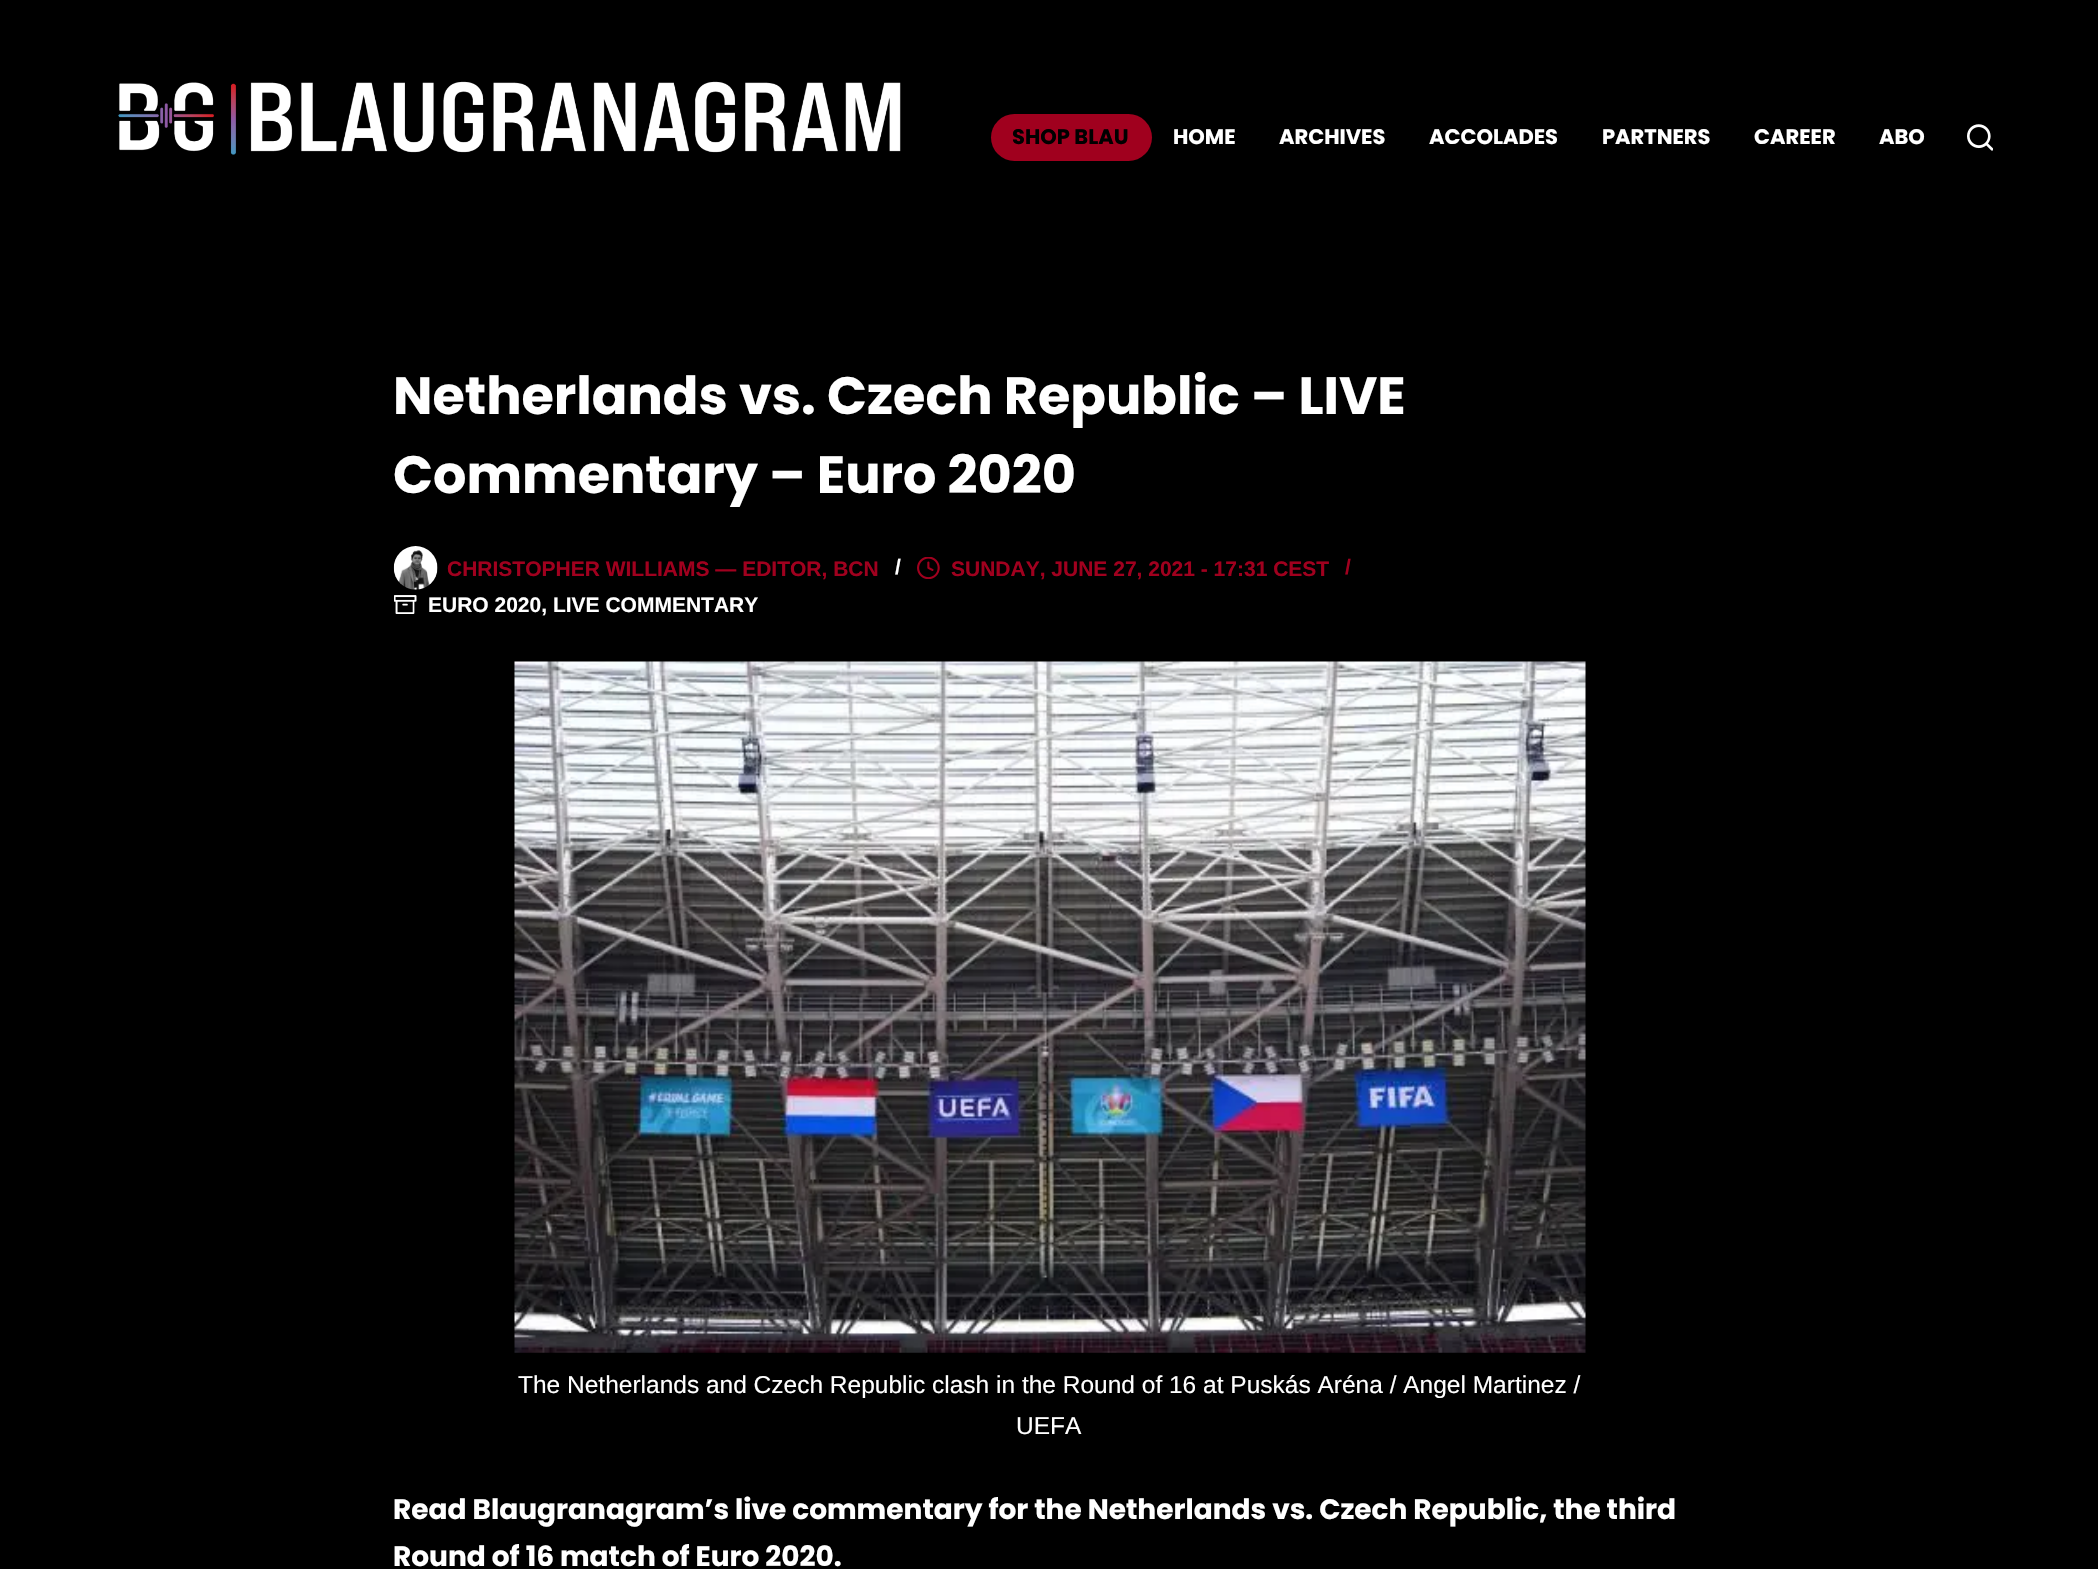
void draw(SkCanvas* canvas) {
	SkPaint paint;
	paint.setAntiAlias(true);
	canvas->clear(0xff000000);
	canvas->drawImageRect(SkImages::DeferredFromEncodedData(SkData::MakeFromFileName("img1.png")), SkRect::MakeXYWH(118, 81, 783, 74), SkSamplingOptions());
	paint.setColor(0xffa0001e);
	canvas->drawRoundRect(SkRect::MakeXYWH(991, 114, 161, 47), 23.5, 23.5, paint);
	SkFont f1(fontMgr->matchFamilyStyle("Poppins", SkFontStyle::Bold()), 21);
	f1.setSubpixel(true);
	paint.setColor(0xff000000);
	canvas->drawString("SHOP BLAU", 1012, 144, f1, paint);
	paint.setColor(0xffffffff);
	canvas->drawString("HOME", 1173, 144, f1, paint);
	canvas->drawString("ARCHIVES", 1279, 144, f1, paint);
	canvas->drawString("ACCOLADES", 1429, 144, f1, paint);
	canvas->drawString("PARTNERS", 1602, 144, f1, paint);
	canvas->drawString("CAREER", 1754, 144, f1, paint);
	canvas->drawString("ABO", 1879, 144, f1, paint);
	canvas->drawImageRect(SkImages::DeferredFromEncodedData(SkData::MakeFromFileName("img2.png")), SkRect::MakeXYWH(1967, 124, 26, 27), SkSamplingOptions());
	SkFont f2(fontMgr->matchFamilyStyle("Poppins", SkFontStyle::Bold()), 52.5);
	f2.setSubpixel(true);
	canvas->drawString("Netherlands vs. Czech Republic – LIVE", 393, 414, f2, paint);
	canvas->drawString("Commentary – Euro 2020", 393, 493, f2, paint);
	canvas->drawImageRect(SkImages::DeferredFromEncodedData(SkData::MakeFromFileName("img3.png")), SkRect::MakeXYWH(393, 546, 45, 44), SkSamplingOptions());
	SkFont f3(fontMgr->matchFamilyStyle("Liberation Sans", SkFontStyle::Bold()), 21);
	f3.setSubpixel(true);
	paint.setColor(0xffa0001e);
	canvas->drawString("CHRISTOPHER WILLIAMS — EDITOR, BCN", 447, 576, f3, paint);
	paint.setColor(0xffffffff);
	canvas->drawString("/", 895, 574, f3, paint);
	canvas->drawImageRect(SkImages::DeferredFromEncodedData(SkData::MakeFromFileName("img4.png")), SkRect::MakeXYWH(917, 557, 23, 22), SkSamplingOptions());
	paint.setColor(0xffa0001e);
	canvas->drawString("SUNDAY, JUNE 27, 2021 - 17:31 CEST", 951, 576, f3, paint);
	canvas->drawString("/", 1345, 574, f3, paint);
	canvas->drawImageRect(SkImages::DeferredFromEncodedData(SkData::MakeFromFileName("img5.png")), SkRect::MakeXYWH(394, 595, 23, 19), SkSamplingOptions());
	paint.setColor(0xffffffff);
	canvas->drawString("EURO 2020, LIVE COMMENTARY", 428, 612, f3, paint);
	canvas->drawImageRect(SkImages::DeferredFromEncodedData(SkData::MakeFromFileName("img6.png")), SkRect::MakeXYWH(514, 661, 1072, 692), SkSamplingOptions());
	SkFont f4(fontMgr->matchFamilyStyle("Liberation Sans", SkFontStyle::Normal()), 24.5);
	f4.setSubpixel(true);
	canvas->drawString("The Netherlands and Czech Republic clash in the Round of 16 at Puskás Aréna / Angel Martinez /", 518, 1393, f4, paint);
	canvas->drawString("UEFA", 1016, 1434, f4, paint);
	SkFont f5(fontMgr->matchFamilyStyle("Poppins", SkFontStyle::Bold()), 28);
	f5.setSubpixel(true);
	canvas->drawString("Read Blaugranagram’s live commentary for the Netherlands vs. Czech Republic, the third", 393, 1519, f5, paint);
	canvas->drawString("Round of 16 match of Euro 2020.", 393, 1566, f5, paint);
}
